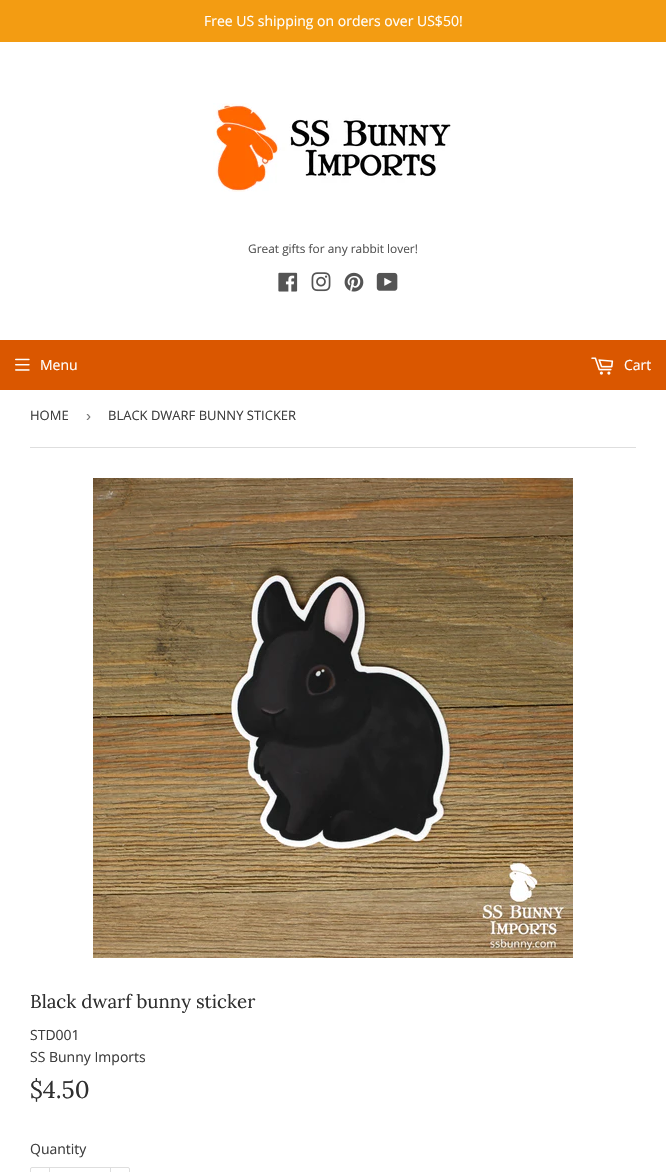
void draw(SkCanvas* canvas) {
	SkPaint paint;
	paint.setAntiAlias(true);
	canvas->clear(0xffffffff);
	paint.setColor(0xfff39c12);
	canvas->drawRect(SkRect::MakeXYWH(0, 0, 666, 42), paint);
	SkFont f1(fontMgr->matchFamilyStyle("Open Sans", SkFontStyle::Normal()), 14);
	f1.setSubpixel(true);
	paint.setColor(0xffffffff);
	canvas->drawString("Free US shipping on orders over US$50!", 204, 26, f1, paint);
	canvas->drawImageRect(SkImages::DeferredFromEncodedData(SkData::MakeFromFileName("img1.png")), SkRect::MakeXYWH(213, 103, 238, 89), SkSamplingOptions());
	SkFont f2(fontMgr->matchFamilyStyle("Open Sans", SkFontStyle::Normal()), 11.9);
	f2.setSubpixel(true);
	paint.setColor(0xff545454);
	canvas->drawString("Great gifts for any rabbit lover!", 248, 253, f2, paint);
	canvas->drawImageRect(SkImages::DeferredFromEncodedData(SkData::MakeFromFileName("img2.png")), SkRect::MakeXYWH(278, 272, 20, 20), SkSamplingOptions());
	canvas->drawImageRect(SkImages::DeferredFromEncodedData(SkData::MakeFromFileName("img3.png")), SkRect::MakeXYWH(311, 272, 20, 20), SkSamplingOptions());
	canvas->drawImageRect(SkImages::DeferredFromEncodedData(SkData::MakeFromFileName("img4.png")), SkRect::MakeXYWH(344, 272, 20, 20), SkSamplingOptions());
	canvas->drawImageRect(SkImages::DeferredFromEncodedData(SkData::MakeFromFileName("img5.png")), SkRect::MakeXYWH(376, 272, 22, 19), SkSamplingOptions());
	paint.setColor(0xffda5700);
	canvas->drawRect(SkRect::MakeXYWH(0, 340, 666, 50), paint);
	canvas->drawImageRect(SkImages::DeferredFromEncodedData(SkData::MakeFromFileName("img6.png")), SkRect::MakeXYWH(15, 358, 15, 13), SkSamplingOptions());
	paint.setColor(0xffffffff);
	canvas->drawString("Menu", 40, 370, f1, paint);
	canvas->drawImageRect(SkImages::DeferredFromEncodedData(SkData::MakeFromFileName("img7.png")), SkRect::MakeXYWH(591, 357, 23, 18), SkSamplingOptions());
	canvas->drawString("Cart", 624, 370, f1, paint);
	paint.setColor(0xffdedede);
	canvas->drawRect(SkRect::MakeXYWH(30, 447, 606, 1), paint);
	SkFont f3(fontMgr->matchFamilyStyle("Open Sans", SkFontStyle::Normal()), 13);
	f3.setSubpixel(true);
	paint.setColor(0xff3e3e3e);
	canvas->drawString("HOME", 30, 420, f3, paint);
	SkFont f4(fontMgr->matchFamilyStyle("Liberation Sans", SkFontStyle::Normal()), 15);
	f4.setSubpixel(true);
	paint.setColor(0xff767676);
	canvas->drawString("›", 86, 421, f4, paint);
	paint.setColor(0xff3e3e3e);
	canvas->drawString("BLACK DWARF BUNNY STICKER", 108, 420, f3, paint);
	canvas->drawImageRect(SkImages::DeferredFromEncodedData(SkData::MakeFromFileName("img8.png")), SkRect::MakeXYWH(93, 478, 480, 480), SkSamplingOptions());
	SkFont f5(fontMgr->matchFamilyStyle("Lora", SkFontStyle::Normal()), 18.7);
	f5.setSubpixel(true);
	paint.setColor(0xff2f2f2f);
	canvas->drawString("Black dwarf bunny sticker", 30, 1008, f5, paint);
	paint.setColor(0xff3e3e3e);
	canvas->drawString("STD001", 30, 1040, f1, paint);
	canvas->drawString("SS Bunny Imports", 30, 1062, f1, paint);
	SkFont f6(fontMgr->matchFamilyStyle("Lora", SkFontStyle::Normal()), 24);
	f6.setSubpixel(true);
	paint.setColor(0xff2f2f2f);
	canvas->drawString("$4.50", 30, 1098, f6, paint);
	paint.setColor(0xff3e3e3e);
	canvas->drawString("Quantity", 30, 1154, f1, paint);
	paint.setStroke(true);
	paint.setStrokeWidth(1);
	paint.setColor(0xffdedede);
	canvas->drawRoundRect(SkRect::MakeXYWH(30.5, 1167.5, 99, 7), 1.5, 1.5, paint);
	paint.setStroke(false);
	canvas->drawRect(SkRect::MakeXYWH(49, 1167, 1, 5), paint);
	canvas->drawRect(SkRect::MakeXYWH(110, 1167, 1, 5), paint);
}
